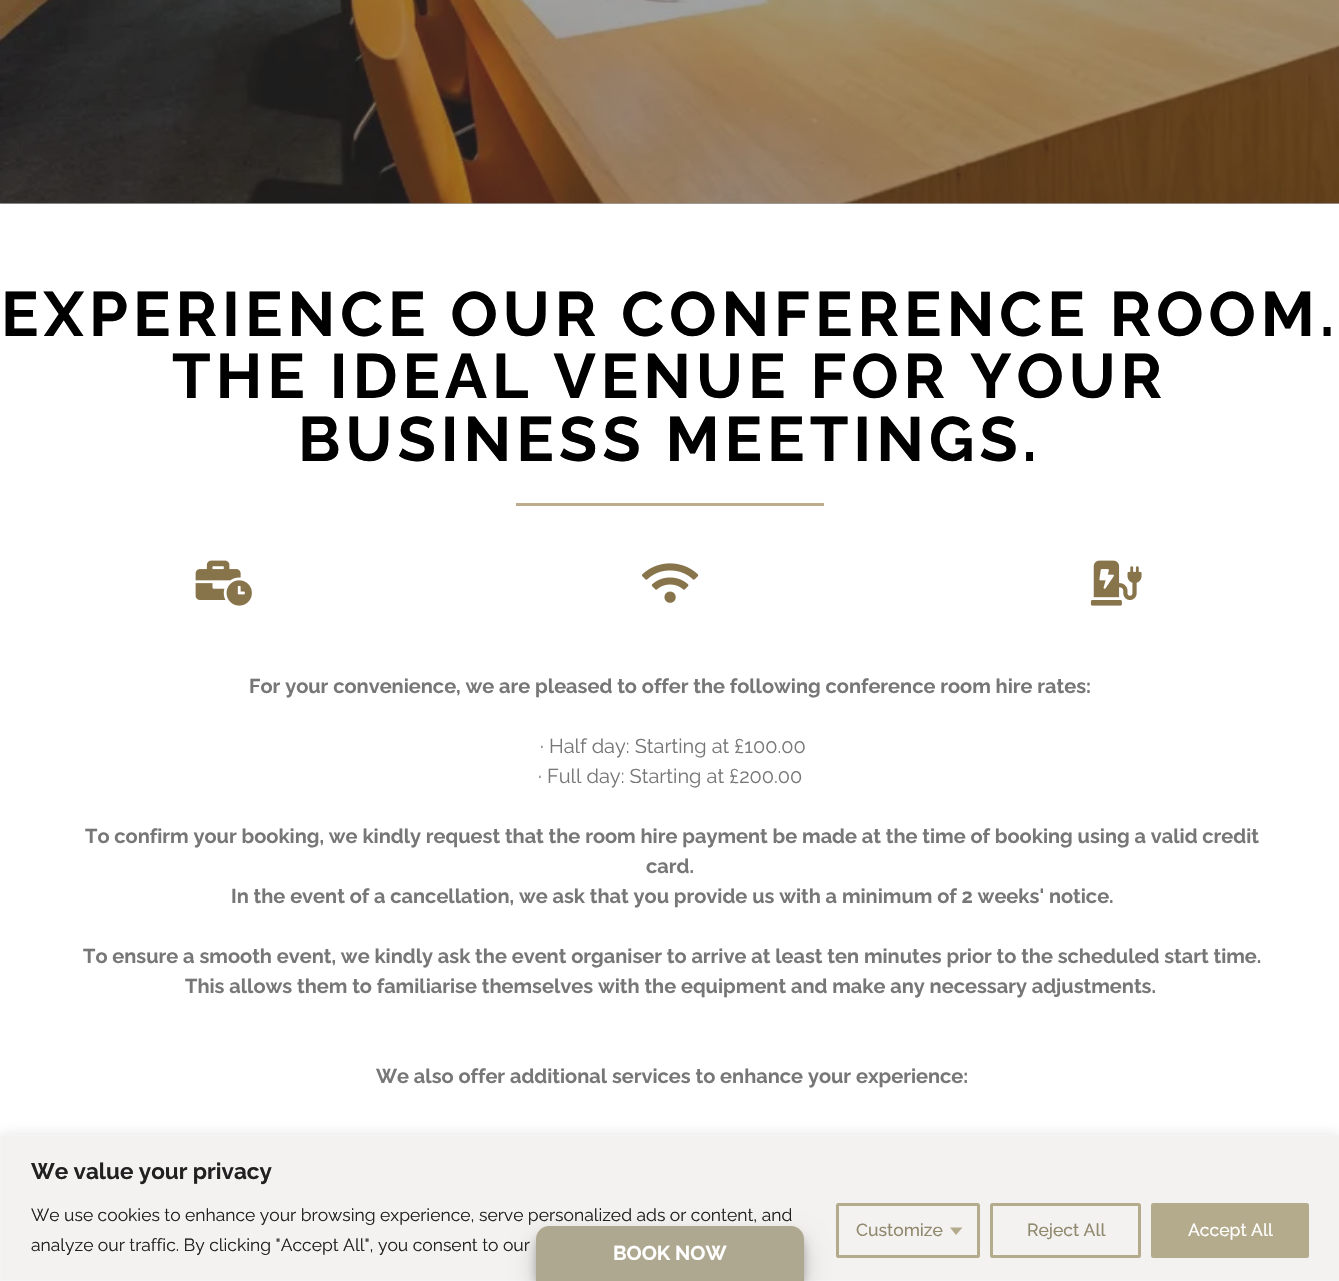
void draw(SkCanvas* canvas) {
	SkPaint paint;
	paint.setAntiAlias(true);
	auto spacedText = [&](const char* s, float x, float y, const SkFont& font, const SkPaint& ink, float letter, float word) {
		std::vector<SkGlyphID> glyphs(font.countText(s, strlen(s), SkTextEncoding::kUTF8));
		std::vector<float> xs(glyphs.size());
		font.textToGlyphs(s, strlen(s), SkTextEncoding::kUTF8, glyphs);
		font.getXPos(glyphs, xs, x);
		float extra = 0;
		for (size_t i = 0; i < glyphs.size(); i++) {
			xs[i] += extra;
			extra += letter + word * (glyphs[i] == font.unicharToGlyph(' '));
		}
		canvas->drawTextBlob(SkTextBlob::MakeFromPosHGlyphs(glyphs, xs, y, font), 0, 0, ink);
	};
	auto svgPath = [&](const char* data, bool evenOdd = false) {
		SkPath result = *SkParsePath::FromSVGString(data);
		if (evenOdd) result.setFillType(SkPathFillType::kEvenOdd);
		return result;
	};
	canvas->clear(0xffffffff);
	paint.setColor(0xffa0a1a1);
	canvas->drawRect(SkRect::MakeXYWH(0, 203, 1339, 1), paint);
	canvas->drawImageRect(SkImages::DeferredFromEncodedData(SkData::MakeFromFileName("img1.png")), SkRect::MakeXYWH(0, 0, 1339, 204), SkSamplingOptions());
	SkFont f1(fontMgr->matchFamilyStyle("Raleway", SkFontStyle::Bold()), 62.5);
	f1.setSubpixel(true);
	paint.setColor(0xff000000);
	spacedText("EXPERIENCE OUR CONFERENCE ROOM.", 1, 336, f1, paint, 5, 0);
	spacedText("THE IDEAL VENUE FOR YOUR", 172, 398, f1, paint, 5, 0);
	spacedText("BUSINESS MEETINGS.", 298, 461, f1, paint, 5, 0);
	paint.setColor(0xffbdac8e);
	canvas->drawRect(SkRect::MakeXYWH(516, 503, 308, 3), paint);
	canvas->drawImageRect(SkImages::DeferredFromEncodedData(SkData::MakeFromFileName("img2.png")), SkRect::MakeXYWH(195, 560, 57, 46), SkSamplingOptions());
	canvas->drawImageRect(SkImages::DeferredFromEncodedData(SkData::MakeFromFileName("img3.png")), SkRect::MakeXYWH(642, 563, 57, 40), SkSamplingOptions());
	canvas->drawImageRect(SkImages::DeferredFromEncodedData(SkData::MakeFromFileName("img4.png")), SkRect::MakeXYWH(1090, 560, 52, 46), SkSamplingOptions());
	SkFont f2(fontMgr->matchFamilyStyle("Raleway", SkFontStyle::Bold()), 20);
	f2.setSubpixel(true);
	paint.setColor(0xff777777);
	canvas->drawString("For your convenience, we are pleased to offer the following conference room hire rates:", 249, 693, f2, paint);
	SkFont f3(fontMgr->matchFamilyStyle("Raleway", SkFontStyle::Normal()), 20);
	f3.setSubpixel(true);
	canvas->drawString("· Half day: Starting at £100.00", 540, 753, f3, paint);
	canvas->drawString("· Full day: Starting at £200.00", 538, 783, f3, paint);
	canvas->drawString("To confirm your booking, we kindly request that the room hire payment be made at the time of booking using a valid credit", 85, 843, f2, paint);
	canvas->drawString("card.", 646, 873, f2, paint);
	canvas->drawString("In the event of a cancellation, we ask that you provide us with a minimum of 2 weeks' notice.", 231, 903, f2, paint);
	canvas->drawString("To ensure a smooth event, we kindly ask the event organiser to arrive at least ten minutes prior to the scheduled start time.", 83, 963, f2, paint);
	canvas->drawString("This allows them to familiarise themselves with the equipment and make any necessary adjustments.", 185, 993, f2, paint);
	canvas->drawString("We also offer additional services to enhance your experience:", 376, 1083, f2, paint);
	paint.setColor(0x4dacabab);
	paint.setMaskFilter(SkMaskFilter::MakeBlur(kNormal_SkBlurStyle, 6));
	canvas->drawRect(SkRect::MakeXYWH(0, 1134, 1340, 146), paint);
	paint.setMaskFilter(nullptr);
	paint.setColor(0xfff4f1f1);
	canvas->drawRect(SkRect::MakeXYWH(0.5, 1135.5, 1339, 145), paint);
	paint.setStroke(true);
	paint.setStrokeWidth(1);
	paint.setColor(0xfff4f4f4);
	canvas->drawRect(SkRect::MakeXYWH(0.5, 1135.5, 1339, 145), paint);
	SkFont f4(fontMgr->matchFamilyStyle("Raleway", SkFontStyle::Bold()), 22.5);
	f4.setSubpixel(true);
	paint.setStroke(false);
	paint.setColor(0xff212121);
	canvas->drawString("We value your privacy", 31, 1179, f4, paint);
	SkFont f5(fontMgr->matchFamilyStyle("Raleway", SkFontStyle::Normal()), 17.5);
	f5.setSubpixel(true);
	canvas->drawString("We use cookies to enhance your browsing experience, serve personalized ads or content, and", 31, 1221, f5, paint);
	canvas->drawString("analyze our traffic. By clicking \"Accept All\", you consent to our", 31, 1251, f5, paint);
	paint.setStroke(true);
	paint.setStrokeWidth(3);
	paint.setColor(0xffb3ab8b);
	canvas->drawRoundRect(SkRect::MakeXYWH(837.5, 1204.5, 141, 52), 1, 1, paint);
	SkFont f6(fontMgr->matchFamilyStyle("Raleway", SkFontStyle(500, SkFontStyle::kNormal_Width, SkFontStyle::kUpright_Slant)), 17.5);
	f6.setSubpixel(true);
	paint.setStroke(false);
	paint.setColor(0xff90896d);
	canvas->drawString("Customize", 856, 1236, f6, paint);
	paint.setColor(0xffb3ab8b);
	canvas->drawPath(svgPath("M950 1227.5H962.5L956 1235Z"), paint);
	paint.setStroke(true);
	canvas->drawRoundRect(SkRect::MakeXYWH(991.5, 1204.5, 148, 52), 1, 1, paint);
	paint.setStroke(false);
	paint.setColor(0xff90896d);
	canvas->drawString("Reject All", 1027, 1236, f6, paint);
	paint.setColor(0xffb3ab8b);
	canvas->drawRoundRect(SkRect::MakeXYWH(1152.5, 1204.5, 155, 52), 1, 1, paint);
	paint.setStroke(true);
	canvas->drawRoundRect(SkRect::MakeXYWH(1152.5, 1204.5, 155, 52), 1, 1, paint);
	paint.setStroke(false);
	paint.setColor(0xffffffff);
	canvas->drawString("Accept All", 1188, 1236, f6, paint);
	paint.setColor(0x3b000000);
	paint.setMaskFilter(SkMaskFilter::MakeBlur(kNormal_SkBlurStyle, 4));
	canvas->drawRoundRect(SkRect::MakeXYWH(536, 1234, 268, 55), 13, 13, paint);
	paint.setMaskFilter(nullptr);
	paint.setColor(0x30000000);
	paint.setMaskFilter(SkMaskFilter::MakeBlur(kNormal_SkBlurStyle, 12.5));
	canvas->drawRoundRect(SkRect::MakeXYWH(536, 1239, 268, 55), 13, 13, paint);
	paint.setMaskFilter(nullptr);
	paint.setColor(0xffafa890);
	canvas->drawPath(svgPath("M549 1226H791C798 1226 804 1232 804 1239V1281H536V1239C536 1232 542 1226 549 1226Z"), paint);
	paint.setColor(0xffffffff);
	canvas->drawString("BOOK NOW", 613, 1260, f2, paint);
}
